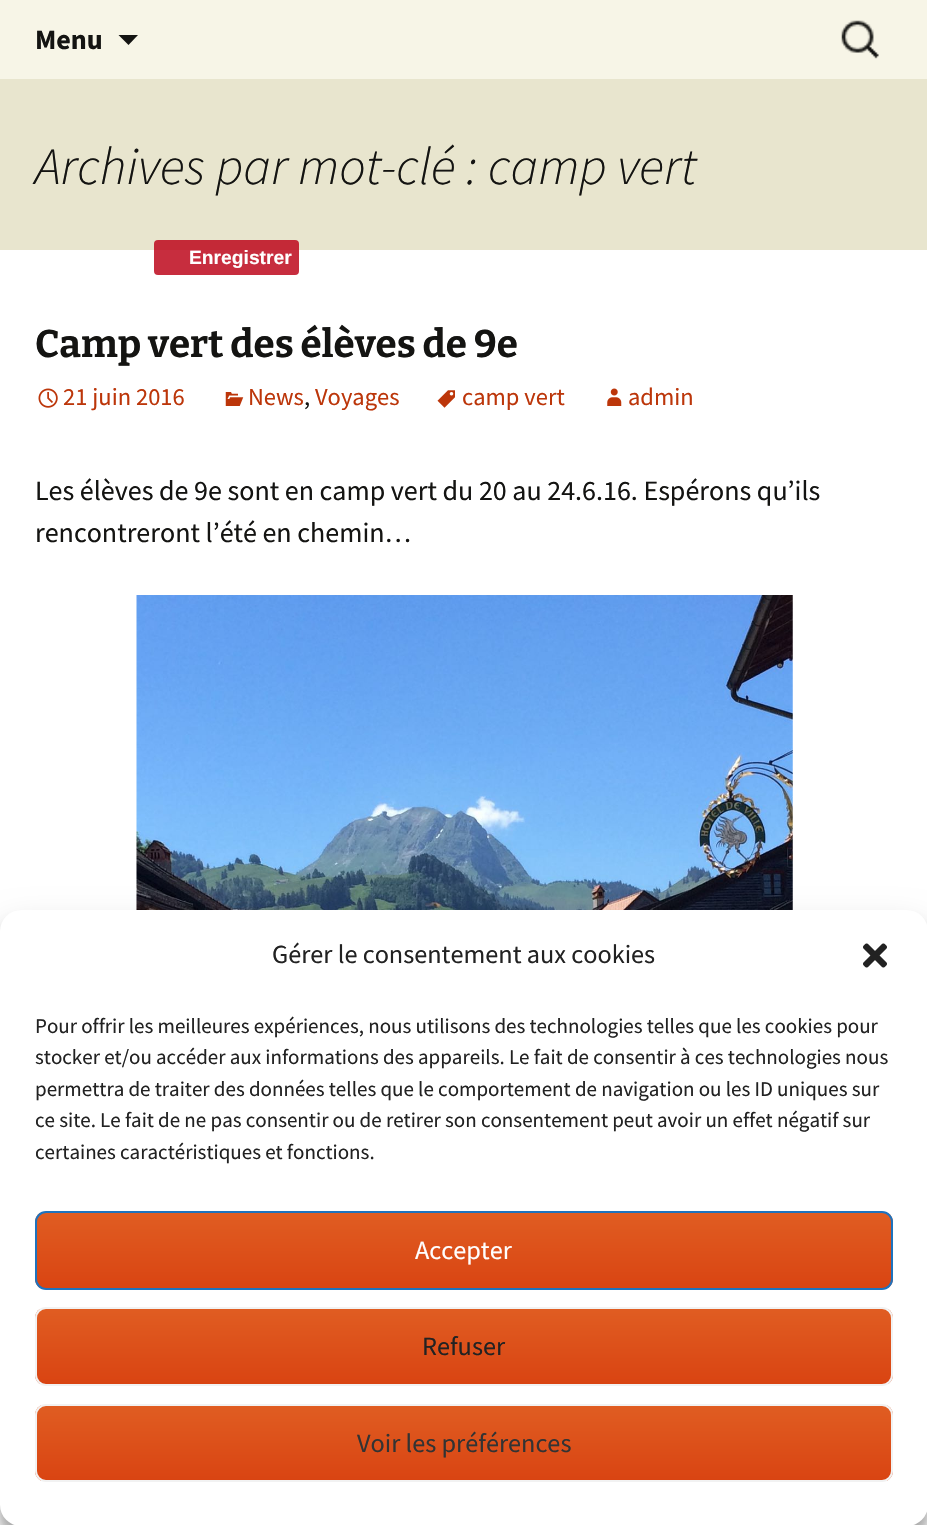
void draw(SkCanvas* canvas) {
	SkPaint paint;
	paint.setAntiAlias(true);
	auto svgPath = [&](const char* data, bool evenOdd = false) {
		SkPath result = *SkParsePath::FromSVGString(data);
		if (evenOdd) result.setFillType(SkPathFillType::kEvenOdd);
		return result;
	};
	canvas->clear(0xffffffff);
	paint.setColor(0xfff7f5e7);
	canvas->drawRect(SkRect::MakeXYWH(0, 0, 927, 79), paint);
	SkFont f1(fontMgr->matchFamilyStyle("Source Sans Pro", SkFontStyle::Bold()), 28);
	f1.setSubpixel(true);
	paint.setColor(0xff141412);
	canvas->drawString("Menu", 35, 49, f1, paint);
	canvas->drawPath(svgPath("M118.5 35L128.5 45L138 35Z"), paint);
	canvas->drawImageRect(SkImages::DeferredFromEncodedData(SkData::MakeFromFileName("img1.png")), SkRect::MakeXYWH(841, 20, 38, 39), SkSamplingOptions());
	paint.setColor(0xffe8e5ce);
	canvas->drawRect(SkRect::MakeXYWH(0, 79, 927, 171), paint);
	SkFont f2(fontMgr->matchFamilyStyle("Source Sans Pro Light", SkFontStyle(300, SkFontStyle::kNormal_Width, SkFontStyle::kItalic_Slant)), 52.5);
	f2.setSubpixel(true);
	paint.setColor(0xff141412);
	canvas->drawString("Archives par mot-clé : camp vert", 35, 184, f2, paint);
	paint.setColor(0xd9bd081c);
	canvas->drawRoundRect(SkRect::MakeXYWH(154, 240, 145, 35), 4, 4, paint);
	SkFont f3(fontMgr->matchFamilyStyle("Liberation Sans", SkFontStyle::Bold()), 19.25);
	f3.setSubpixel(true);
	paint.setColor(0xffffffff);
	canvas->drawString("Enregistrer", 189, 264, f3, paint);
	SkFont f4(fontMgr->matchFamilyStyle("Source Sans Pro", SkFontStyle::Normal()), 28);
	f4.setSubpixel(true);
	paint.setColor(0xff141412);
	canvas->drawString("Les élèves de 9e sont en camp vert du 20 au 24.6.16. Espérons qu’ils", 35, 500, f4, paint);
	canvas->drawString("rencontreront l’été en chemin…", 35, 542, f4, paint);
	canvas->drawImageRect(SkImages::DeferredFromEncodedData(SkData::MakeFromFileName("img2.png")), SkRect::MakeXYWH(136, 595, 657, 315), SkSamplingOptions());
	SkFont f5(fontMgr->matchFamilyStyle("Bitter", SkFontStyle(100, SkFontStyle::kNormal_Width, SkFontStyle::kUpright_Slant)), 38.5);
	f5.setSubpixel(true);
	canvas->drawString("Camp vert des élèves de 9e", 35, 357, f5, paint);
	canvas->drawImageRect(SkImages::DeferredFromEncodedData(SkData::MakeFromFileName("img3.png")), SkRect::MakeXYWH(38, 388, 20, 20), SkSamplingOptions());
	SkFont f6(fontMgr->matchFamilyStyle("Source Sans Pro", SkFontStyle::Normal()), 24.5);
	f6.setSubpixel(true);
	paint.setColor(0xffbc360a);
	canvas->drawString("21 juin 2016", 63, 405, f6, paint);
	canvas->drawImageRect(SkImages::DeferredFromEncodedData(SkData::MakeFromFileName("img4.png")), SkRect::MakeXYWH(225, 392, 19, 14), SkSamplingOptions());
	canvas->drawString("News", 248, 405, f6, paint);
	paint.setColor(0xff141412);
	canvas->drawString(",", 304, 405, f6, paint);
	paint.setColor(0xffbc360a);
	canvas->drawString("Voyages", 315, 405, f6, paint);
	canvas->drawImageRect(SkImages::DeferredFromEncodedData(SkData::MakeFromFileName("img5.png")), SkRect::MakeXYWH(437, 390, 18, 18), SkSamplingOptions());
	canvas->drawString("camp vert", 462, 405, f6, paint);
	canvas->drawImageRect(SkImages::DeferredFromEncodedData(SkData::MakeFromFileName("img6.png")), SkRect::MakeXYWH(607, 388, 15, 18), SkSamplingOptions());
	canvas->drawString("admin", 628, 405, f6, paint);
	paint.setColor(0x3b000000);
	paint.setMaskFilter(SkMaskFilter::MakeBlur(kNormal_SkBlurStyle, 5));
	canvas->drawRoundRect(SkRect::MakeXYWH(0, 921, 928, 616), 21, 21, paint);
	paint.setMaskFilter(nullptr);
	paint.setColor(0x30000000);
	paint.setMaskFilter(SkMaskFilter::MakeBlur(kNormal_SkBlurStyle, 17.5));
	canvas->drawRoundRect(SkRect::MakeXYWH(0, 928, 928, 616), 21, 21, paint);
	paint.setMaskFilter(nullptr);
	paint.setColor(0xffffffff);
	canvas->drawRoundRect(SkRect::MakeXYWH(0, 910, 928, 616), 21, 21, paint);
	SkFont f7(fontMgr->matchFamilyStyle("Source Sans Pro", SkFontStyle::Normal()), 26.25);
	f7.setSubpixel(true);
	paint.setColor(0xff222222);
	canvas->drawString("Gérer le consentement aux cookies", 272, 963, f7, paint);
	canvas->drawImageRect(SkImages::DeferredFromEncodedData(SkData::MakeFromFileName("img7.png")), SkRect::MakeXYWH(863, 943, 24, 25), SkSamplingOptions());
	SkFont f8(fontMgr->matchFamilyStyle("Source Sans Pro", SkFontStyle::Normal()), 21);
	f8.setSubpixel(true);
	canvas->drawString("Pour offrir les meilleures expériences, nous utilisons des technologies telles que les cookies pour", 35, 1033, f8, paint);
	canvas->drawString("stocker et/ou accéder aux informations des appareils. Le fait de consentir à ces technologies nous", 35, 1064, f8, paint);
	canvas->drawString("permettra de traiter des données telles que le comportement de navigation ou les ID uniques sur", 35, 1096, f8, paint);
	canvas->drawString("ce site. Le fait de ne pas consentir ou de retirer son consentement peut avoir un effet négatif sur", 35, 1127, f8, paint);
	canvas->drawString("certaines caractéristiques et fonctions.", 35, 1159, f8, paint);
	canvas->save();
	canvas->clipPath(svgPath("M46 1211H882C888 1211 893 1216 893 1222V1279C893 1285 888 1290 882 1290H46C40 1290 35 1285 35 1279V1222C35 1216 40 1211 46 1211Z"), true);
	{
		const SkColor colors[] = {0xffe05d22, 0xffd94412};
		const float stops[] = {0, 1};
		const SkPoint ends[] = {{464, 1213}, {464, 1288}};
		paint.setShader(SkGradientShader::MakeLinear(ends, colors, stops, 2, SkTileMode::kClamp));
		paint.setAlpha(255);
	}
	canvas->drawRect(SkRect::MakeXYWH(35, 1213, 858, 75), paint);
	canvas->restore();
	paint.setStroke(true);
	paint.setStrokeWidth(2);
	paint.setShader(nullptr);
	paint.setColor(0xff1e73be);
	canvas->drawRoundRect(SkRect::MakeXYWH(36, 1212, 856, 77), 10, 10, paint);
	paint.setStroke(false);
	paint.setColor(0xffffffff);
	canvas->drawString("Accepter", 415, 1259, f7, paint);
	canvas->save();
	canvas->clipPath(svgPath("M46 1307H882C888 1307 893 1312 893 1318V1375C893 1381 888 1386 882 1386H46C40 1386 35 1381 35 1375V1318C35 1312 40 1307 46 1307Z"), true);
	{
		const SkColor colors[] = {0xffe05d22, 0xffd94412};
		const float stops[] = {0, 1};
		const SkPoint ends[] = {{464, 1309}, {464, 1384}};
		paint.setShader(SkGradientShader::MakeLinear(ends, colors, stops, 2, SkTileMode::kClamp));
		paint.setAlpha(255);
	}
	canvas->drawRect(SkRect::MakeXYWH(35, 1309, 858, 75), paint);
	canvas->restore();
	paint.setStroke(true);
	paint.setShader(nullptr);
	paint.setColor(0xfff2f2f2);
	canvas->drawRoundRect(SkRect::MakeXYWH(36, 1308, 856, 77), 10, 10, paint);
	paint.setStroke(false);
	paint.setColor(0xff222222);
	canvas->drawString("Refuser", 422, 1355, f7, paint);
	canvas->save();
	canvas->clipPath(svgPath("M46 1404H882C888 1404 893 1409 893 1415V1471C893 1477 888 1482 882 1482H46C40 1482 35 1477 35 1471V1415C35 1409 40 1404 46 1404Z"), true);
	{
		const SkColor colors[] = {0xffe05d22, 0xffd94412};
		const float stops[] = {0, 1};
		const SkPoint ends[] = {{464, 1405}, {464, 1481}};
		paint.setShader(SkGradientShader::MakeLinear(ends, colors, stops, 2, SkTileMode::kClamp));
		paint.setAlpha(255);
	}
	canvas->drawRect(SkRect::MakeXYWH(35, 1405, 858, 76), paint);
	canvas->restore();
	paint.setStroke(true);
	paint.setShader(nullptr);
	paint.setColor(0xfff2f2f2);
	canvas->drawRoundRect(SkRect::MakeXYWH(36, 1405, 856, 76), 10, 10, paint);
	paint.setStroke(false);
	paint.setColor(0xff333333);
	canvas->drawString("Voir les préférences", 357, 1452, f7, paint);
}
